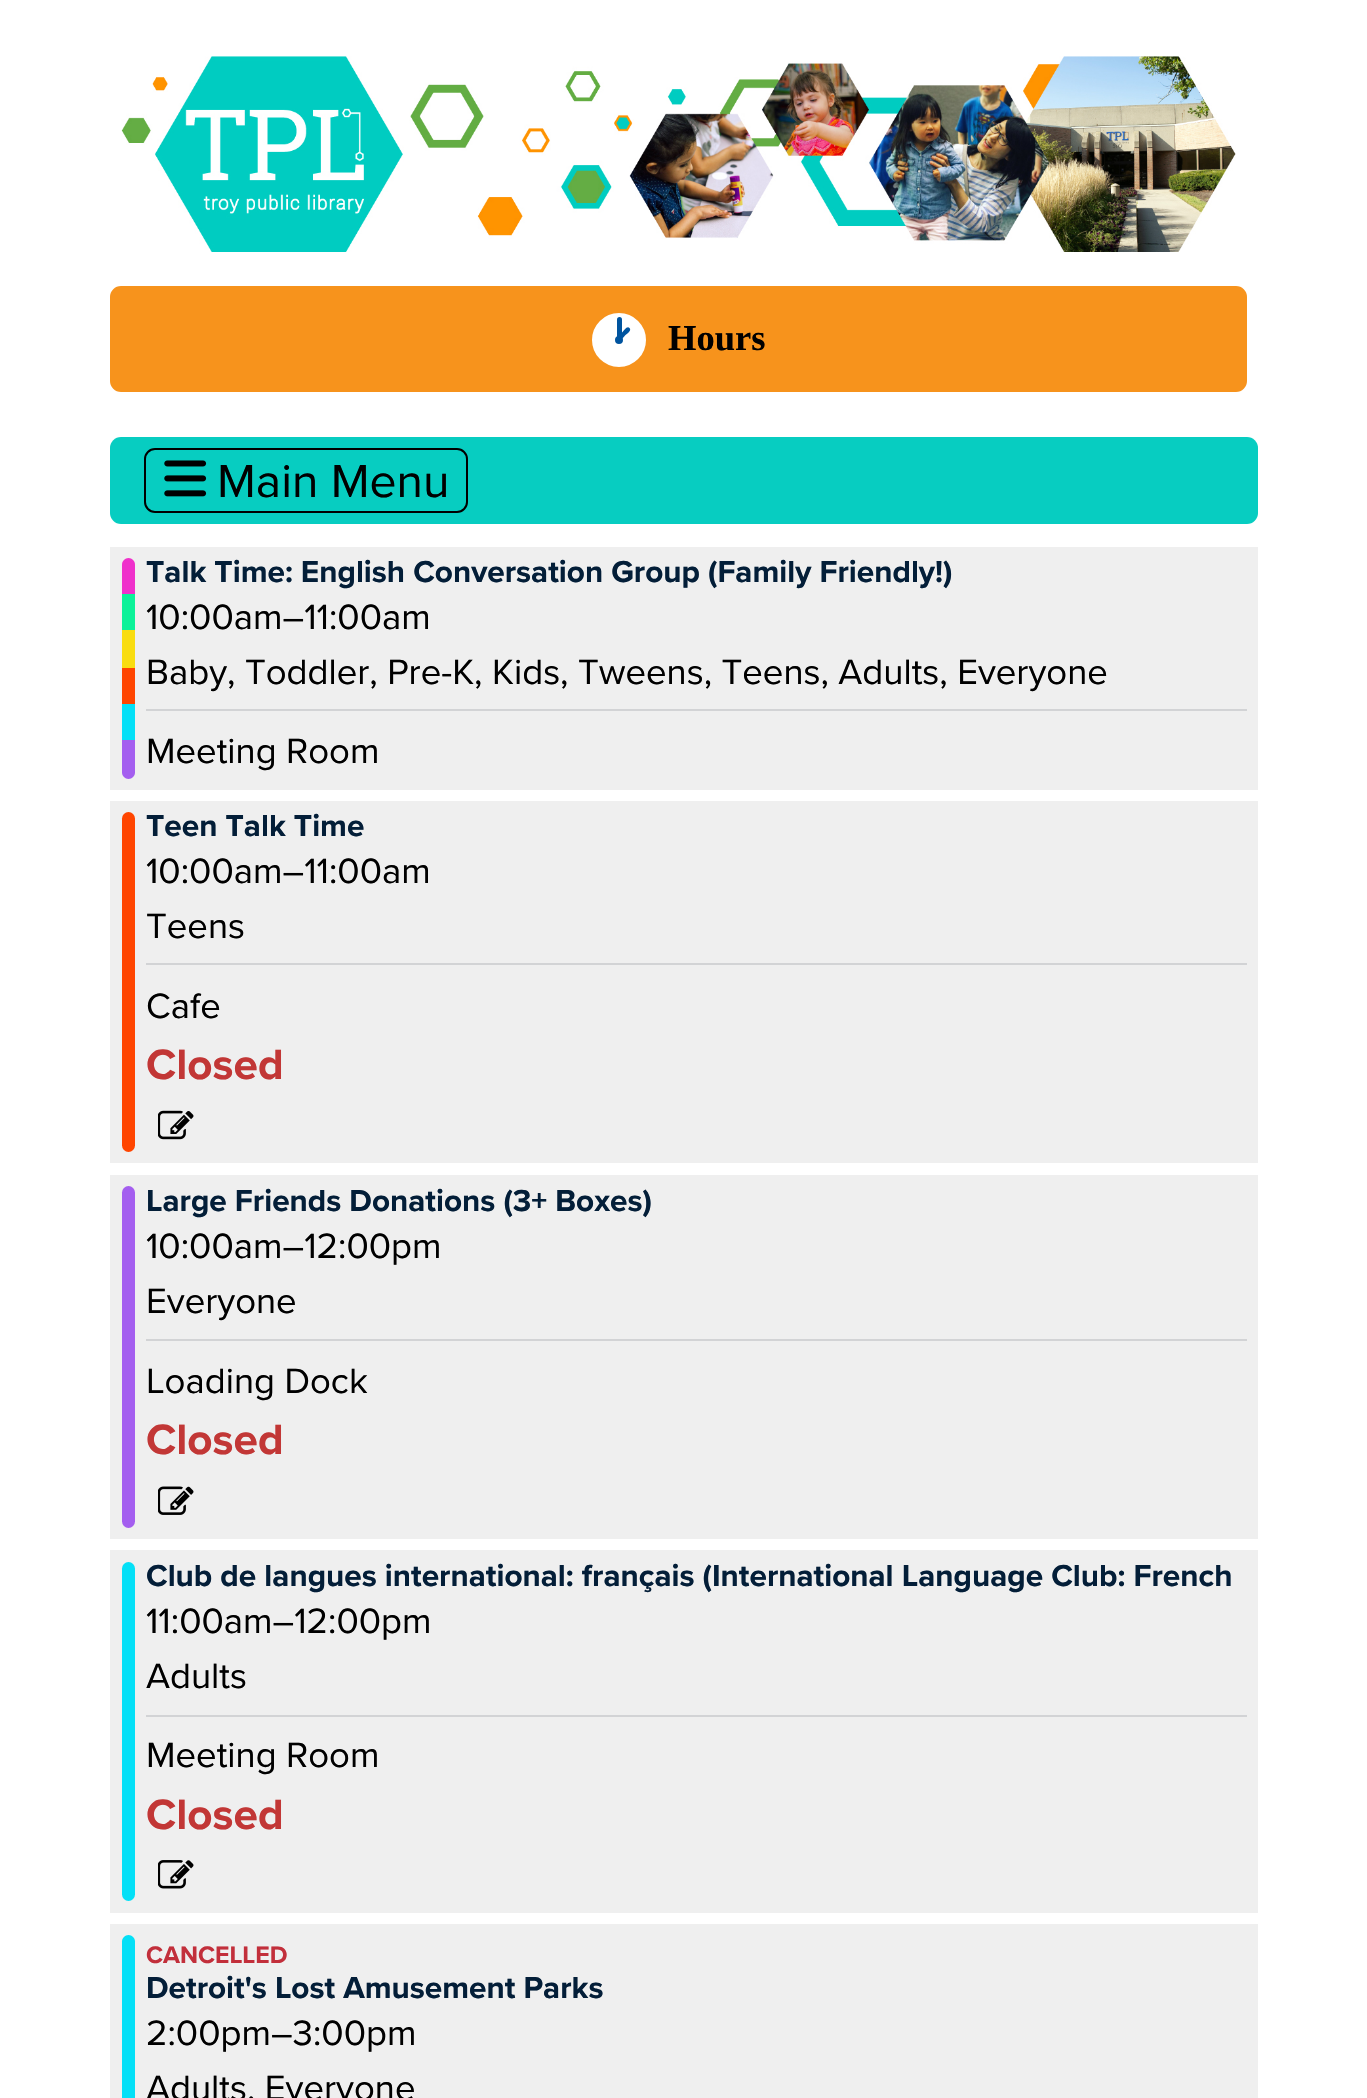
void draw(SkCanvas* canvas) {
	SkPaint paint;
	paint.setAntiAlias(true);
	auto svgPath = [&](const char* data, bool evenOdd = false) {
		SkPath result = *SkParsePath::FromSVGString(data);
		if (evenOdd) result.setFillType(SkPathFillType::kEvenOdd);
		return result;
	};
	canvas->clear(0xffffffff);
	canvas->drawImageRect(SkImages::DeferredFromEncodedData(SkData::MakeFromFileName("img1.png")), SkRect::MakeXYWH(121, 56, 1115, 196), SkSamplingOptions());
	paint.setColor(0xfff7931c);
	canvas->drawRoundRect(SkRect::MakeXYWH(111, 287, 1135, 104), 10, 10, paint);
	paint.setStroke(true);
	paint.setStrokeWidth(2);
	canvas->drawRoundRect(SkRect::MakeXYWH(111, 287, 1135, 104), 10, 10, paint);
	paint.setStroke(false);
	paint.setColor(0xff00549f);
	canvas->drawCircle(619, 340, 15.5, paint);
	paint.setStroke(true);
	paint.setStrokeWidth(23);
	paint.setColor(0xffffffff);
	canvas->drawCircle(619, 340, 15.5, paint);
	paint.setStroke(false);
	paint.setColor(0xff00549f);
	canvas->drawRoundRect(SkRect::MakeXYWH(617, 317, 5, 23), 2.5, 2.5, paint);
	canvas->drawPath(svgPath("M629.5 328C632 330.5 627 334 625.5 335C624 336.5 621 341.5 618.5 339C616 337 621 333.5 622.5 332C624 330.5 627 325.5 629.5 328Z"), paint);
	SkFont f1(fontMgr->matchFamilyStyle("Liberation Serif", SkFontStyle::Bold()), 36.5);
	f1.setSubpixel(true);
	paint.setColor(0xff000000);
	canvas->drawString("Hours", 668, 350, f1, paint);
	paint.setColor(0xff07cdc1);
	canvas->drawRoundRect(SkRect::MakeXYWH(110, 437, 1148, 87), 11, 11, paint);
	paint.setStroke(true);
	paint.setStrokeWidth(2);
	paint.setColor(0xff000000);
	canvas->drawRoundRect(SkRect::MakeXYWH(145, 449, 322, 63), 10, 10, paint);
	canvas->drawImageRect(SkImages::DeferredFromEncodedData(SkData::MakeFromFileName("img2.png")), SkRect::MakeXYWH(164, 460, 43, 37), SkSamplingOptions());
	SkFont f2(fontMgr->matchFamilyStyle("Proxima Nova", SkFontStyle::Normal()), 48);
	f2.setSubpixel(true);
	paint.setStroke(false);
	canvas->drawString("Main Menu", 217, 497, f2, paint);
	paint.setColor(0xffefefef);
	canvas->drawRect(SkRect::MakeXYWH(110, 547, 1148, 243), paint);
	paint.setColor(0xffef30cb);
	canvas->drawPath(svgPath("M128.5 558C132 558 135 561 135 564.5V594H122V564.5C122 561 125 558 128.5 558Z"), paint);
	paint.setColor(0xff0bf299);
	canvas->drawRect(SkRect::MakeXYWH(122, 594, 13, 36), paint);
	paint.setColor(0xfff9dd10);
	canvas->drawRect(SkRect::MakeXYWH(122, 630, 13, 38), paint);
	paint.setColor(0xffff4500);
	canvas->drawRect(SkRect::MakeXYWH(122, 668, 13, 36), paint);
	paint.setColor(0xff04e0f7);
	canvas->drawRect(SkRect::MakeXYWH(122, 704, 13, 36), paint);
	paint.setColor(0xffa45eef);
	canvas->drawPath(svgPath("M122 740H135V772.5C135 776 132 779 128.5 779C125 779 122 776 122 772.5Z"), paint);
	SkFont f3(fontMgr->matchFamilyStyle("Proxima Nova", SkFontStyle::Bold()), 31.5);
	f3.setSubpixel(true);
	paint.setColor(0xff031e38);
	canvas->drawString("Talk Time: English Conversation Group (Family Friendly!)", 146, 582, f3, paint);
	SkFont f4(fontMgr->matchFamilyStyle("Proxima Nova", SkFontStyle::Normal()), 36.5);
	f4.setSubpixel(true);
	paint.setColor(0xff000000);
	canvas->drawString("10:00am–11:00am", 146, 629, f4, paint);
	canvas->drawString("Baby, Toddler, Pre-K,", 146, 684, f4, paint);
	canvas->drawString("Kids, Tweens, Teens, Adults, Everyone", 492, 684, f4, paint);
	paint.setColor(0xffd2d3d5);
	canvas->drawRect(SkRect::MakeXYWH(146, 709, 1101, 2), paint);
	paint.setColor(0xff000000);
	canvas->drawString("Meeting Room", 146, 763, f4, paint);
	paint.setColor(0xffefefef);
	canvas->drawRect(SkRect::MakeXYWH(110, 801, 1148, 362), paint);
	paint.setColor(0xffff4500);
	canvas->drawRoundRect(SkRect::MakeXYWH(122, 812, 13, 340), 6.5, 6.5, paint);
	paint.setColor(0xff031e38);
	canvas->drawString("Teen Talk Time", 146, 836, f3, paint);
	paint.setColor(0xff000000);
	canvas->drawString("10:00am–11:00am", 146, 883, f4, paint);
	canvas->drawString("Teens", 146, 938, f4, paint);
	paint.setColor(0xffd2d3d5);
	canvas->drawRect(SkRect::MakeXYWH(146, 963, 1101, 2), paint);
	paint.setColor(0xff000000);
	canvas->drawString("Cafe", 146, 1018, f4, paint);
	SkFont f5(fontMgr->matchFamilyStyle("Proxima Nova", SkFontStyle::Bold()), 44);
	f5.setSubpixel(true);
	paint.setColor(0xffc23736);
	canvas->drawString("Closed", 146, 1079, f5, paint);
	canvas->drawImageRect(SkImages::DeferredFromEncodedData(SkData::MakeFromFileName("img3.png")), SkRect::MakeXYWH(158, 1110, 36, 30), SkSamplingOptions());
	paint.setColor(0xffefefef);
	canvas->drawRect(SkRect::MakeXYWH(110, 1175, 1148, 364), paint);
	paint.setColor(0xffa45eef);
	canvas->drawRoundRect(SkRect::MakeXYWH(122, 1186, 13, 342), 6.5, 6.5, paint);
	paint.setColor(0xff031e38);
	canvas->drawString("Large Friends Donations (3+ Boxes)", 146, 1211, f3, paint);
	paint.setColor(0xff000000);
	canvas->drawString("10:00am–12:00pm", 146, 1258, f4, paint);
	canvas->drawString("Everyone", 146, 1313, f4, paint);
	paint.setColor(0xffd2d3d5);
	canvas->drawRect(SkRect::MakeXYWH(146, 1339, 1101, 2), paint);
	paint.setColor(0xff000000);
	canvas->drawString("Loading Dock", 146, 1393, f4, paint);
	paint.setColor(0xffc23736);
	canvas->drawString("Closed", 146, 1454, f5, paint);
	canvas->drawImageRect(SkImages::DeferredFromEncodedData(SkData::MakeFromFileName("img4.png")), SkRect::MakeXYWH(158, 1486, 36, 29), SkSamplingOptions());
	paint.setColor(0xffefefef);
	canvas->drawRect(SkRect::MakeXYWH(110, 1550, 1148, 363), paint);
	paint.setColor(0xff04e0f7);
	canvas->drawRoundRect(SkRect::MakeXYWH(122, 1562, 13, 339), 6.5, 6.5, paint);
	paint.setColor(0xff031e38);
	canvas->drawString("Club de langues international: français (International Language Club: French", 146, 1586, f3, paint);
	paint.setColor(0xff000000);
	canvas->drawString("11:00am–12:00pm", 146, 1633, f4, paint);
	canvas->drawString("Adults", 146, 1688, f4, paint);
	paint.setColor(0xffd2d3d5);
	canvas->drawRect(SkRect::MakeXYWH(146, 1715, 1101, 2), paint);
	paint.setColor(0xff000000);
	canvas->drawString("Meeting Room", 146, 1767, f4, paint);
	paint.setColor(0xffc23736);
	canvas->drawString("Closed", 146, 1829, f5, paint);
	canvas->drawImageRect(SkImages::DeferredFromEncodedData(SkData::MakeFromFileName("img5.png")), SkRect::MakeXYWH(158, 1860, 36, 29), SkSamplingOptions());
	paint.setColor(0xffefefef);
	canvas->drawRect(SkRect::MakeXYWH(110, 1924, 1148, 174), paint);
	paint.setColor(0xff04e0f7);
	canvas->drawPath(svgPath("M128.5 1935C132 1935 135 1938 135 1941.5V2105H122V1941.5C122 1938 125 1935 128.5 1935Z"), paint);
	SkFont f6(fontMgr->matchFamilyStyle("Proxima Nova", SkFontStyle::Bold()), 24.75);
	f6.setSubpixel(true);
	paint.setColor(0xffc22f3b);
	canvas->drawString("CANCELLED", 146, 1963, f6, paint);
	paint.setColor(0xff031e38);
	canvas->drawString("Detroit's Lost Amusement Parks", 146, 1998, f3, paint);
	paint.setColor(0xff000000);
	canvas->drawString("2:00pm–3:00pm", 146, 2045, f4, paint);
	canvas->drawString("Adults, Everyone", 146, 2100, f4, paint);
}
